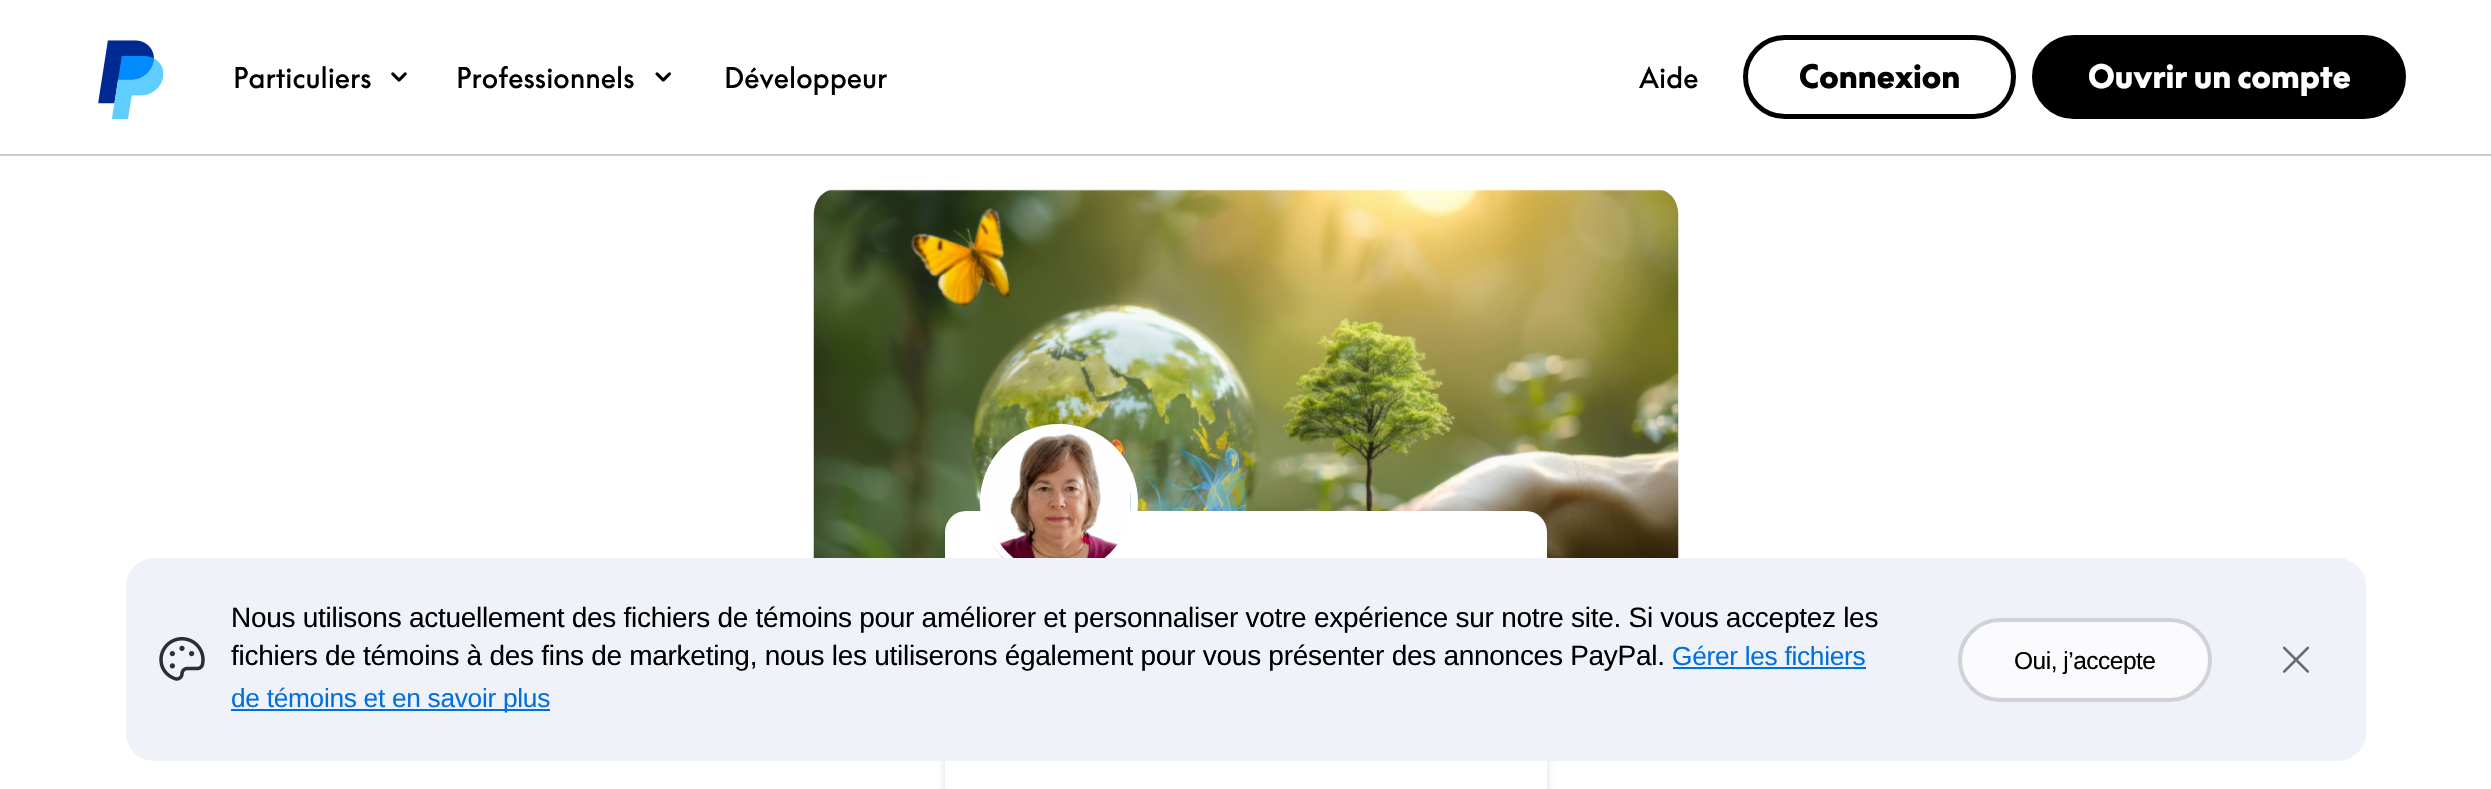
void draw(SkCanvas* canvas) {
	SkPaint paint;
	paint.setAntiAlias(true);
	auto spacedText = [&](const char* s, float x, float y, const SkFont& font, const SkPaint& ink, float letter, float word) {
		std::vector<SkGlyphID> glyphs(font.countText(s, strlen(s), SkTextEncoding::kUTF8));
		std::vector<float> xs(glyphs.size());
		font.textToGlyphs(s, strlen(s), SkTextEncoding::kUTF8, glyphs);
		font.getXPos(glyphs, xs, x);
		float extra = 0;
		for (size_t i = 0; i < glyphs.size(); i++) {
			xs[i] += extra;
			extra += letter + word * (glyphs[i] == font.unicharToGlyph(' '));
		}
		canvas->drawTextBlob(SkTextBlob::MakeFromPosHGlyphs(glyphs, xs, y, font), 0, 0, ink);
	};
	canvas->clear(0xffffffff);
	canvas->drawImageRect(SkImages::DeferredFromEncodedData(SkData::MakeFromFileName("img1.png")), SkRect::MakeXYWH(98, 40, 66, 79), SkSamplingOptions());
	SkFont f1(fontMgr->matchFamilyStyle("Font", SkFontStyle::Normal()), 28);
	f1.setSubpixel(true);
	paint.setColor(0xff000000);
	canvas->drawString("Particuliers", 233, 88, f1, paint);
	canvas->drawImageRect(SkImages::DeferredFromEncodedData(SkData::MakeFromFileName("img2.png")), SkRect::MakeXYWH(391, 72, 16, 10), SkSamplingOptions());
	canvas->drawString("Professionnels", 456, 88, f1, paint);
	canvas->drawImageRect(SkImages::DeferredFromEncodedData(SkData::MakeFromFileName("img3.png")), SkRect::MakeXYWH(655, 72, 16, 10), SkSamplingOptions());
	canvas->drawString("Développeur", 724, 88, f1, paint);
	canvas->drawString("Aide", 1639, 88, f1, paint);
	paint.setStroke(true);
	paint.setStrokeWidth(5);
	canvas->drawRoundRect(SkRect::MakeXYWH(1745.5, 37.5, 268, 79), 39.5, 39.5, paint);
	SkFont f2(fontMgr->matchFamilyStyle("Font", SkFontStyle(900, SkFontStyle::kNormal_Width, SkFontStyle::kUpright_Slant)), 31.5);
	f2.setSubpixel(true);
	paint.setStroke(false);
	canvas->drawString("Connexion", 1799, 88, f2, paint);
	canvas->drawRoundRect(SkRect::MakeXYWH(2034.5, 37.5, 369, 79), 39.5, 39.5, paint);
	paint.setStroke(true);
	canvas->drawRoundRect(SkRect::MakeXYWH(2034.5, 37.5, 369, 79), 39.5, 39.5, paint);
	paint.setStroke(false);
	paint.setColor(0xffffffff);
	canvas->drawString("Ouvrir un compte", 2088, 88, f2, paint);
	paint.setColor(0xffcccccc);
	canvas->drawRect(SkRect::MakeXYWH(0, 154, 2491, 2), paint);
	canvas->drawImageRect(SkImages::DeferredFromEncodedData(SkData::MakeFromFileName("img4.png")), SkRect::MakeXYWH(813, 189, 866, 369), SkSamplingOptions());
	paint.setColor(0x26000000);
	paint.setMaskFilter(SkMaskFilter::MakeBlur(kNormal_SkBlurStyle, 3.5));
	canvas->drawRoundRect(SkRect::MakeXYWH(945, 515, 602, 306), 21, 21, paint);
	paint.setMaskFilter(nullptr);
	paint.setColor(0xffffffff);
	canvas->drawRoundRect(SkRect::MakeXYWH(945, 511, 602, 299), 21, 21, paint);
	canvas->drawImageRect(SkImages::DeferredFromEncodedData(SkData::MakeFromFileName("img5.png")), SkRect::MakeXYWH(987, 430, 144, 128), SkSamplingOptions());
	paint.setStroke(true);
	paint.setStrokeWidth(7);
	canvas->drawRoundRect(SkRect::MakeXYWH(983.5, 427.5, 151, 150), 75, 75, paint);
	paint.setStroke(false);
	paint.setColor(0xfff0f2f9);
	canvas->drawRoundRect(SkRect::MakeXYWH(126, 558, 2240, 203), 28, 28, paint);
	canvas->drawImageRect(SkImages::DeferredFromEncodedData(SkData::MakeFromFileName("img6.png")), SkRect::MakeXYWH(159, 637, 46, 44), SkSamplingOptions());
	SkFont f3(fontMgr->matchFamilyStyle("Liberation Sans", SkFontStyle::Normal()), 28);
	f3.setSubpixel(true);
	paint.setColor(0xff000000);
	spacedText("Nous utilisons actuellement des fichiers de témoins pour améliorer et personnaliser votre expérience sur notre site. Si vous acceptez les", 231, 627, f3, paint, -0.28, 0);
	spacedText("fichiers de témoins à des fins de marketing, nous les utiliserons également pour vous présenter des annonces PayPal.", 231, 665, f3, paint, -0.28, 0);
	SkFont f4(fontMgr->matchFamilyStyle("Liberation Sans", SkFontStyle::Normal()), 26.25);
	f4.setSubpixel(true);
	paint.setColor(0xff0070e0);
	spacedText("Gérer les fichiers", 1672, 665, f4, paint, -0.28, 0);
	canvas->drawRect(SkRect::MakeXYWH(1673, 667, 193, 2), paint);
	canvas->drawRect(SkRect::MakeXYWH(231, 709, 319, 2), paint);
	spacedText("de témoins et en savoir plus", 231, 707, f4, paint, -0.28, 0);
	paint.setColor(0xfffbfbfd);
	canvas->drawRoundRect(SkRect::MakeXYWH(1960, 620, 250, 80), 40, 40, paint);
	paint.setStroke(true);
	paint.setStrokeWidth(4);
	paint.setColor(0xffcfd3d8);
	canvas->drawRoundRect(SkRect::MakeXYWH(1960, 620, 250, 80), 40, 40, paint);
	SkFont f5(fontMgr->matchFamilyStyle("Liberation Sans", SkFontStyle::Normal()), 24.5);
	f5.setSubpixel(true);
	paint.setStroke(false);
	paint.setColor(0xff000000);
	spacedText("Oui, j’accepte", 2014, 669, f5, paint, -0.5, 0);
	canvas->drawImageRect(SkImages::DeferredFromEncodedData(SkData::MakeFromFileName("img7.png")), SkRect::MakeXYWH(2282, 646, 28, 27), SkSamplingOptions());
}
